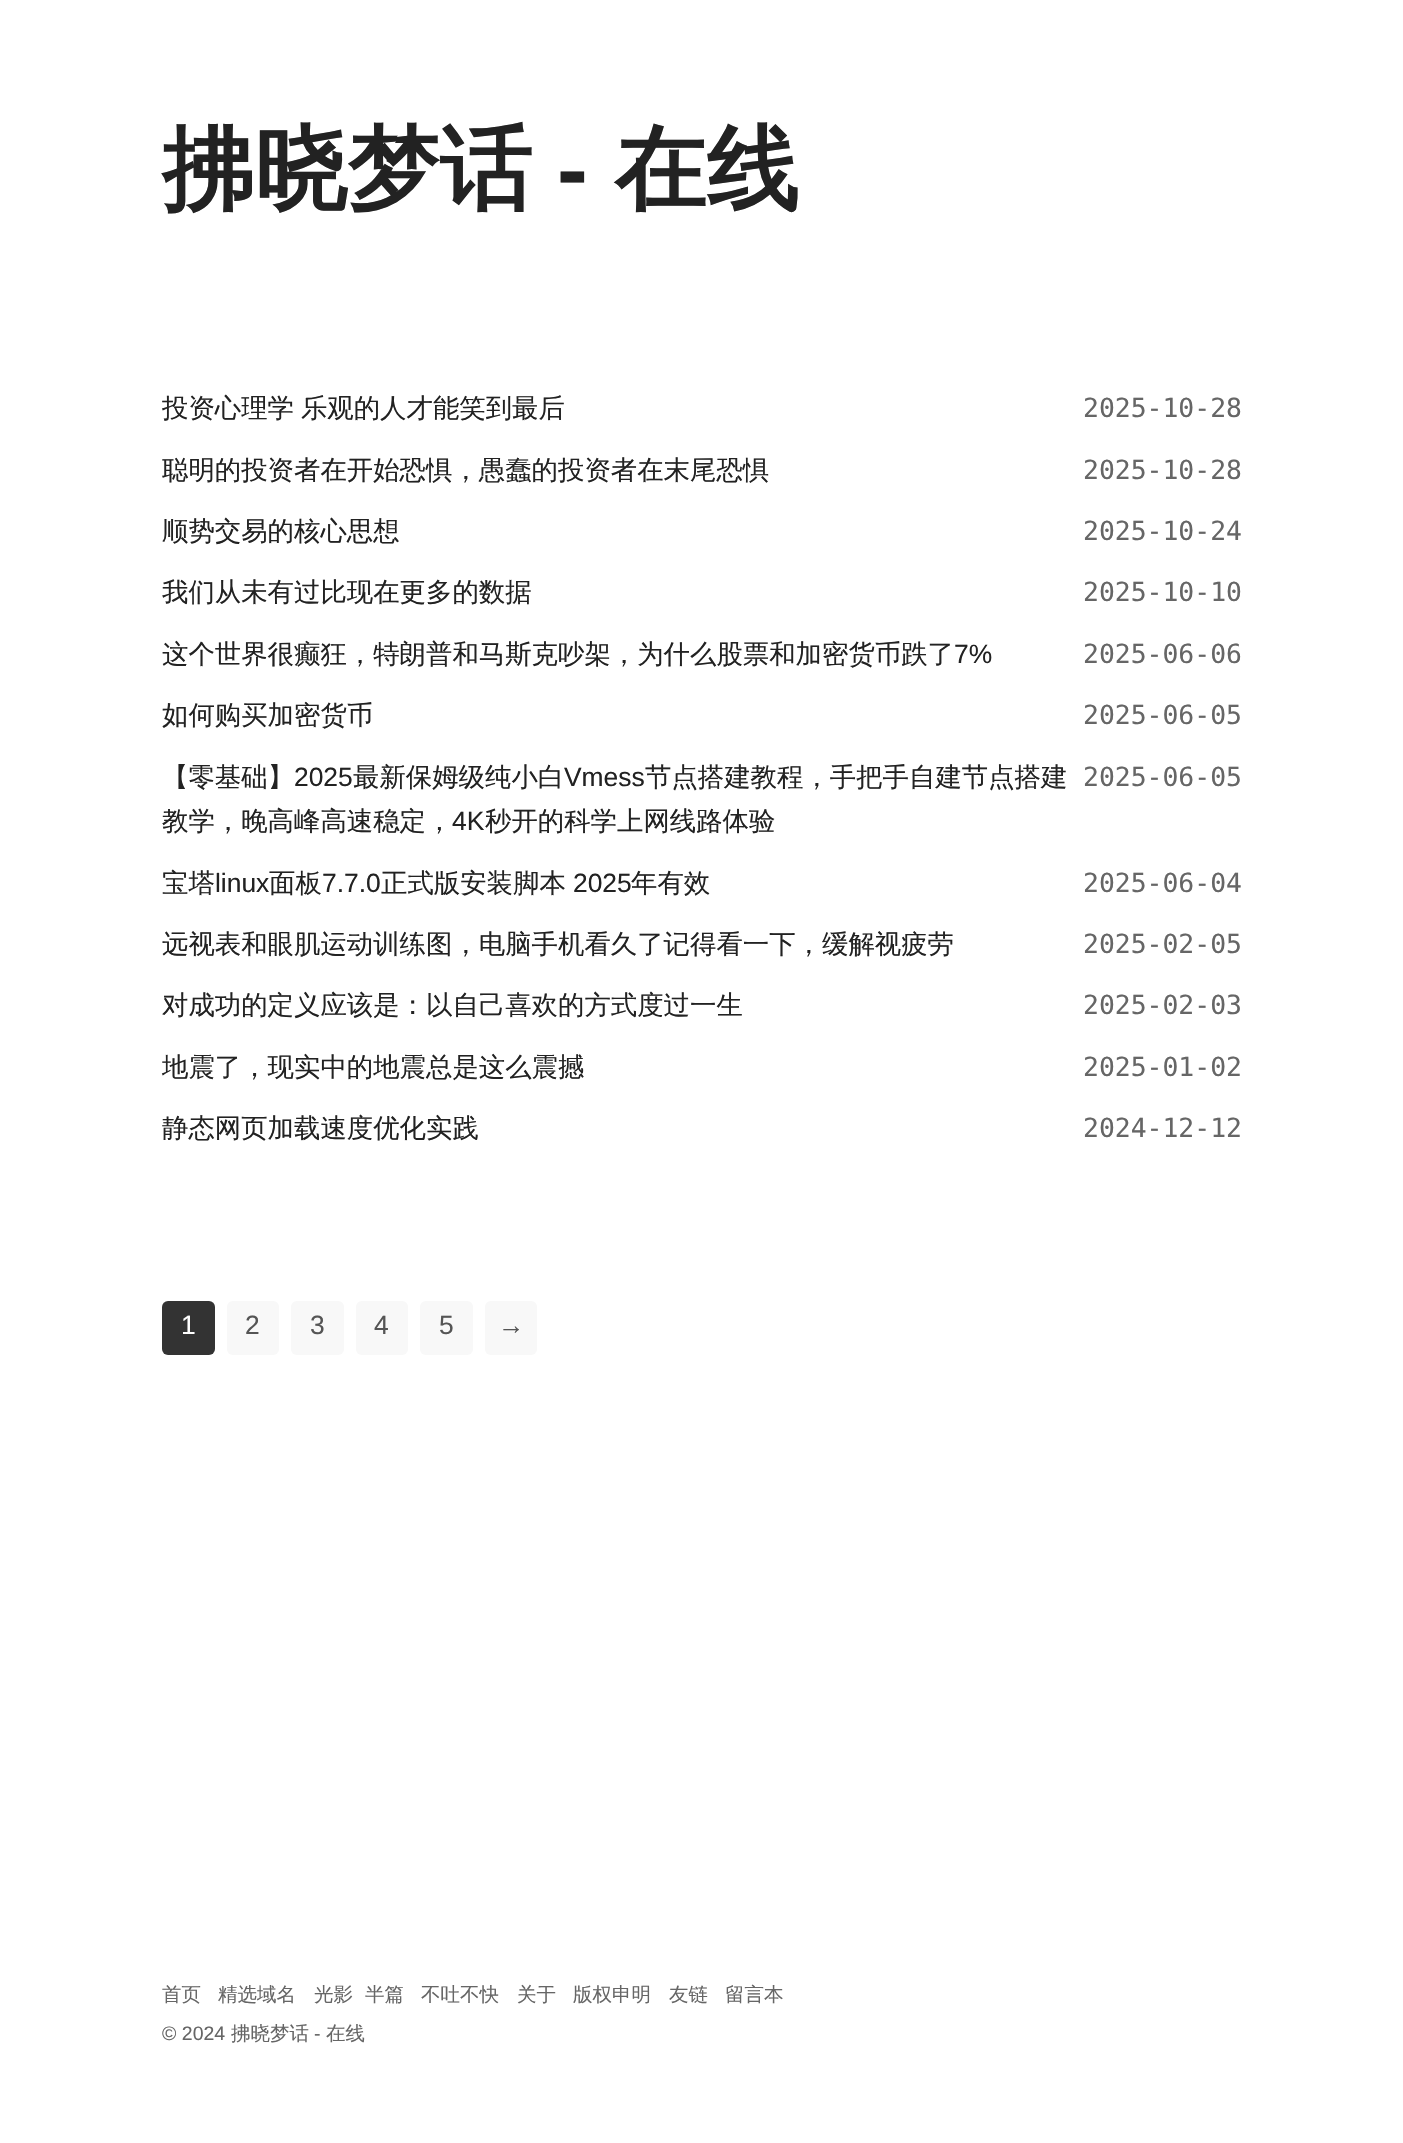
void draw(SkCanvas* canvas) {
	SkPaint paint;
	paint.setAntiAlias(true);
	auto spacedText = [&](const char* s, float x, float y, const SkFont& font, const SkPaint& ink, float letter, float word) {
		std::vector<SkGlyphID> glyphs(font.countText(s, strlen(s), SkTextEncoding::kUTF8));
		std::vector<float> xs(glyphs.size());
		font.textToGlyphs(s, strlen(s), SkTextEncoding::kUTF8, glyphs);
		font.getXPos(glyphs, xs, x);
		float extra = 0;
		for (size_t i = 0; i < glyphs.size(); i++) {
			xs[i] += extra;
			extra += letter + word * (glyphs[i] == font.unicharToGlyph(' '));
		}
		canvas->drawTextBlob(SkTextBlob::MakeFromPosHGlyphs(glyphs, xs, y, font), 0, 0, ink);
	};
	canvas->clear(0xffffffff);
	SkFont f1(fontMgr->matchFamilyStyle("WenQuanYi Zen Hei", SkFontStyle::Bold()), 92.5);
	f1.setSubpixel(true);
	paint.setColor(0xff222222);
	canvas->drawString("拂晓梦话", 162, 201, f1, paint);
	SkFont f2(fontMgr->matchFamilyStyle("Liberation Sans", SkFontStyle::Bold()), 92.5);
	f2.setSubpixel(true);
	canvas->drawString("-", 557, 201, f2, paint);
	canvas->drawString("在线", 614, 201, f1, paint);
	SkFont f3(fontMgr->matchFamilyStyle("WenQuanYi Zen Hei", SkFontStyle(500, SkFontStyle::kNormal_Width, SkFontStyle::kUpright_Slant)), 26.4);
	f3.setSubpixel(true);
	spacedText("投资心理学 乐观的人才能笑到最后", 162, 417, f3, paint, 0, -1);
	SkFont f4(fontMgr->matchFamilyStyle("DejaVu Sans Mono", SkFontStyle::Normal()), 26.4);
	f4.setSubpixel(true);
	paint.setColor(0xff666666);
	canvas->drawString("2025-10-28", 1083, 417, f4, paint);
	paint.setColor(0xff222222);
	canvas->drawString("聪明的投资者在开始恐惧，愚蠢的投资者在末尾恐惧", 162, 479, f3, paint);
	paint.setColor(0xff666666);
	canvas->drawString("2025-10-28", 1083, 479, f4, paint);
	paint.setColor(0xff222222);
	canvas->drawString("顺势交易的核心思想", 162, 540, f3, paint);
	paint.setColor(0xff666666);
	canvas->drawString("2025-10-24", 1083, 540, f4, paint);
	paint.setColor(0xff222222);
	canvas->drawString("我们从未有过比现在更多的数据", 162, 601, f3, paint);
	paint.setColor(0xff666666);
	canvas->drawString("2025-10-10", 1083, 601, f4, paint);
	paint.setColor(0xff222222);
	canvas->drawString("这个世界很癫狂，特朗普和马斯克吵架，为什么股票和加密货币跌了", 162, 663, f3, paint);
	SkFont f5(fontMgr->matchFamilyStyle("Liberation Sans", SkFontStyle::Normal()), 26.4);
	f5.setSubpixel(true);
	canvas->drawString("7%", 954, 663, f5, paint);
	paint.setColor(0xff666666);
	canvas->drawString("2025-06-06", 1083, 663, f4, paint);
	paint.setColor(0xff222222);
	canvas->drawString("如何购买加密货币", 162, 724, f3, paint);
	paint.setColor(0xff666666);
	canvas->drawString("2025-06-05", 1083, 724, f4, paint);
	paint.setColor(0xff222222);
	canvas->drawString("【零基础】", 162, 786, f3, paint);
	canvas->drawString("2025", 294, 786, f5, paint);
	canvas->drawString("最新保姆级纯小白", 353, 786, f3, paint);
	canvas->drawString("Vmess", 564, 786, f5, paint);
	canvas->drawString("节点搭建教程，手把手自建节点搭建", 645, 786, f3, paint);
	canvas->drawString("教学，晚高峰高速稳定，", 162, 830, f3, paint);
	canvas->drawString("4K", 452, 830, f5, paint);
	canvas->drawString("秒开的科学上网线路体验", 485, 830, f3, paint);
	paint.setColor(0xff666666);
	canvas->drawString("2025-06-05", 1083, 786, f4, paint);
	paint.setColor(0xff222222);
	canvas->drawString("宝塔", 162, 892, f3, paint);
	canvas->drawString("linux", 215, 892, f5, paint);
	canvas->drawString("面板", 269, 892, f3, paint);
	canvas->drawString("7.7.0", 322, 892, f5, paint);
	canvas->drawString("正式版安装脚本", 381, 892, f3, paint);
	canvas->drawString("2025", 573, 892, f5, paint);
	canvas->drawString("年有效", 631, 892, f3, paint);
	paint.setColor(0xff666666);
	canvas->drawString("2025-06-04", 1083, 892, f4, paint);
	paint.setColor(0xff222222);
	canvas->drawString("远视表和眼肌运动训练图，电脑手机看久了记得看一下，缓解视疲劳", 162, 953, f3, paint);
	paint.setColor(0xff666666);
	canvas->drawString("2025-02-05", 1083, 953, f4, paint);
	paint.setColor(0xff222222);
	canvas->drawString("对成功的定义应该是：以自己喜欢的方式度过一生", 162, 1014, f3, paint);
	paint.setColor(0xff666666);
	canvas->drawString("2025-02-03", 1083, 1014, f4, paint);
	paint.setColor(0xff222222);
	canvas->drawString("地震了，现实中的地震总是这么震撼", 162, 1076, f3, paint);
	paint.setColor(0xff666666);
	canvas->drawString("2025-01-02", 1083, 1076, f4, paint);
	paint.setColor(0xff222222);
	canvas->drawString("静态网页加载速度优化实践", 162, 1137, f3, paint);
	paint.setColor(0xff666666);
	canvas->drawString("2024-12-12", 1083, 1137, f4, paint);
	paint.setColor(0xff333333);
	canvas->drawRoundRect(SkRect::MakeXYWH(162, 1301, 53, 54), 6, 6, paint);
	paint.setColor(0xffffffff);
	canvas->drawString("1", 181, 1334, f5, paint);
	paint.setColor(0xfff8f8f8);
	canvas->drawRoundRect(SkRect::MakeXYWH(227, 1301, 52, 54), 6, 6, paint);
	paint.setColor(0xff555555);
	canvas->drawString("2", 245, 1334, f5, paint);
	paint.setColor(0xfff8f8f8);
	canvas->drawRoundRect(SkRect::MakeXYWH(291, 1301, 53, 54), 6, 6, paint);
	paint.setColor(0xff555555);
	canvas->drawString("3", 310, 1334, f5, paint);
	paint.setColor(0xfff8f8f8);
	canvas->drawRoundRect(SkRect::MakeXYWH(356, 1301, 52, 54), 6, 6, paint);
	paint.setColor(0xff555555);
	canvas->drawString("4", 374, 1334, f5, paint);
	paint.setColor(0xfff8f8f8);
	canvas->drawRoundRect(SkRect::MakeXYWH(420, 1301, 53, 54), 6, 6, paint);
	paint.setColor(0xff555555);
	canvas->drawString("5", 439, 1334, f5, paint);
	paint.setColor(0xfff8f8f8);
	canvas->drawRoundRect(SkRect::MakeXYWH(485, 1301, 52, 54), 6, 6, paint);
	paint.setColor(0xff555555);
	canvas->drawString("→", 498, 1334, f5, paint);
	SkFont f6(fontMgr->matchFamilyStyle("WenQuanYi Zen Hei", SkFontStyle(500, SkFontStyle::kNormal_Width, SkFontStyle::kUpright_Slant)), 19.5);
	f6.setSubpixel(true);
	paint.setColor(0xff666666);
	canvas->drawString("首页", 162, 2001, f6, paint);
	canvas->drawString("精选域名", 218, 2001, f6, paint);
	canvas->drawString("光影", 314, 2001, f6, paint);
	canvas->drawString("半篇", 365, 2001, f6, paint);
	canvas->drawString("不吐不快", 421, 2001, f6, paint);
	canvas->drawString("关于", 517, 2001, f6, paint);
	canvas->drawString("版权申明", 573, 2001, f6, paint);
	canvas->drawString("友链", 669, 2001, f6, paint);
	canvas->drawString("留言本", 725, 2001, f6, paint);
	SkFont f7(fontMgr->matchFamilyStyle("Liberation Sans", SkFontStyle::Normal()), 19.5);
	f7.setSubpixel(true);
	canvas->drawString("© 2024", 162, 2040, f7, paint);
	canvas->drawString("拂晓梦话", 231, 2040, f6, paint);
	canvas->drawString("-", 314, 2040, f7, paint);
	canvas->drawString("在线", 326, 2040, f6, paint);
}
